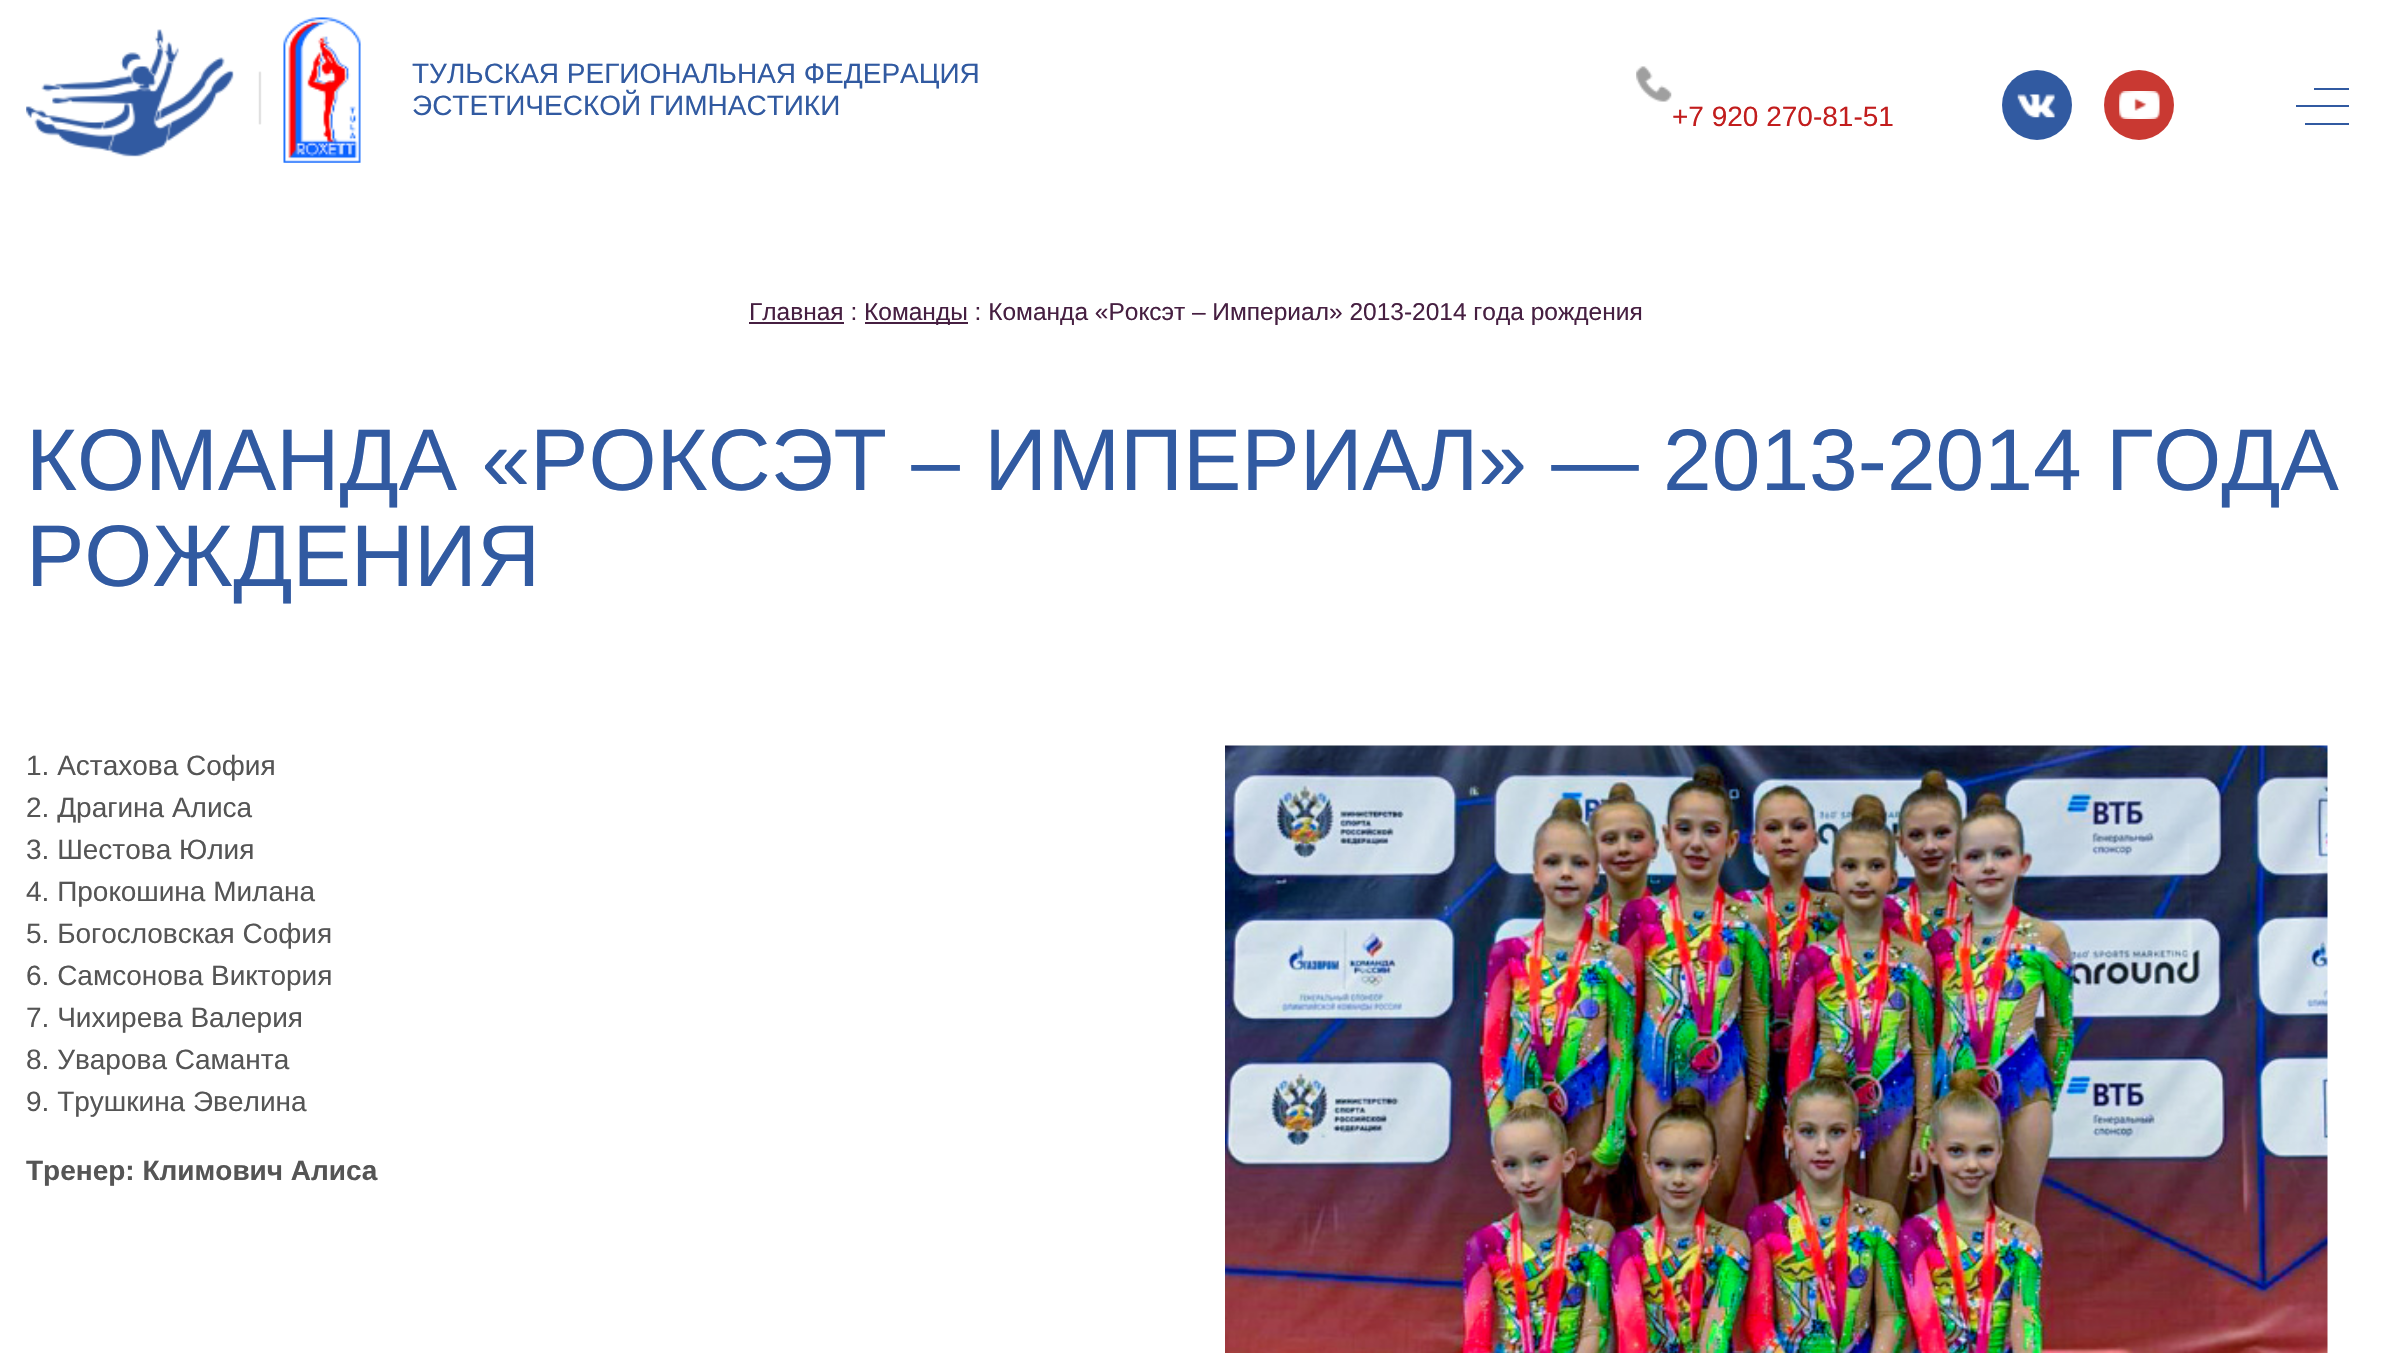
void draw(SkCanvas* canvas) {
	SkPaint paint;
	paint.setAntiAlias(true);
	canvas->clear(0xffffffff);
	canvas->drawImageRect(SkImages::DeferredFromEncodedData(SkData::MakeFromFileName("img1.png")), SkRect::MakeXYWH(26, 17, 335, 146), SkSamplingOptions());
	SkFont f1(fontMgr->matchFamilyStyle("Liberation Sans", SkFontStyle::Normal()), 28);
	f1.setSubpixel(true);
	paint.setColor(0xff315aa1);
	canvas->drawString("ТУЛЬСКАЯ РЕГИОНАЛЬНАЯ ФЕДЕРАЦИЯ", 412, 83, f1, paint);
	canvas->drawString("ЭСТЕТИЧЕСКОЙ ГИМНАСТИКИ", 412, 115, f1, paint);
	canvas->drawImageRect(SkImages::DeferredFromEncodedData(SkData::MakeFromFileName("img2.png")), SkRect::MakeXYWH(1636, 66, 36, 36), SkSamplingOptions());
	paint.setColor(0xffc21d1d);
	canvas->drawString("+7 920 270-81-51", 1672, 126, f1, paint);
	paint.setColor(0xff315aa1);
	canvas->drawCircle(2037, 105, 35, paint);
	canvas->drawImageRect(SkImages::DeferredFromEncodedData(SkData::MakeFromFileName("img3.png")), SkRect::MakeXYWH(2017, 94, 38, 24), SkSamplingOptions());
	paint.setColor(0xffc93932);
	canvas->drawCircle(2139, 105, 35, paint);
	canvas->drawImageRect(SkImages::DeferredFromEncodedData(SkData::MakeFromFileName("img4.png")), SkRect::MakeXYWH(2119, 91, 41, 28), SkSamplingOptions());
	paint.setColor(0xff315aa1);
	canvas->drawRect(SkRect::MakeXYWH(2314, 88, 35, 2), paint);
	canvas->drawRect(SkRect::MakeXYWH(2296, 105, 53, 2), paint);
	canvas->drawRect(SkRect::MakeXYWH(2305, 123, 44, 2), paint);
	SkFont f2(fontMgr->matchFamilyStyle("Liberation Sans", SkFontStyle::Normal()), 24.5);
	f2.setSubpixel(true);
	paint.setColor(0xff461f41);
	canvas->drawString("Главная :", 749, 320, f2, paint);
	canvas->drawRect(SkRect::MakeXYWH(749, 322, 95, 2), paint);
	canvas->drawRect(SkRect::MakeXYWH(865, 322, 103, 2), paint);
	canvas->drawString("Команды : Команда «Роксэт – Империал» 2013-2014 года рождения", 864, 320, f2, paint);
	SkFont f3(fontMgr->matchFamilyStyle("Liberation Sans", SkFontStyle::Normal()), 87.5);
	f3.setSubpixel(true);
	paint.setColor(0xff315aa1);
	canvas->drawString("КОМАНДА «РОКСЭТ – ИМПЕРИАЛ» — 2013-2014 ГОДА", 26, 490, f3, paint);
	canvas->drawString("РОЖДЕНИЯ", 26, 586, f3, paint);
	paint.setColor(0xff555555);
	canvas->drawString("1. Астахова София", 26, 775, f1, paint);
	canvas->drawString("2. Драгина Алиса", 26, 817, f1, paint);
	canvas->drawString("3. Шестова Юлия", 26, 859, f1, paint);
	canvas->drawString("4. Прокошина Милана", 26, 901, f1, paint);
	canvas->drawString("5. Богословская София", 26, 943, f1, paint);
	canvas->drawString("6. Самсонова Виктория", 26, 985, f1, paint);
	canvas->drawString("7. Чихирева Валерия", 26, 1027, f1, paint);
	canvas->drawString("8. Уварова Саманта", 26, 1069, f1, paint);
	canvas->drawString("9. Трушкина Эвелина", 26, 1111, f1, paint);
	SkFont f4(fontMgr->matchFamilyStyle("Liberation Sans", SkFontStyle::Bold()), 28);
	f4.setSubpixel(true);
	canvas->drawString("Тренер: Климович Алиса", 26, 1180, f4, paint);
	canvas->drawImageRect(SkImages::DeferredFromEncodedData(SkData::MakeFromFileName("img5.png")), SkRect::MakeXYWH(1225, 745, 1103, 608), SkSamplingOptions());
}
